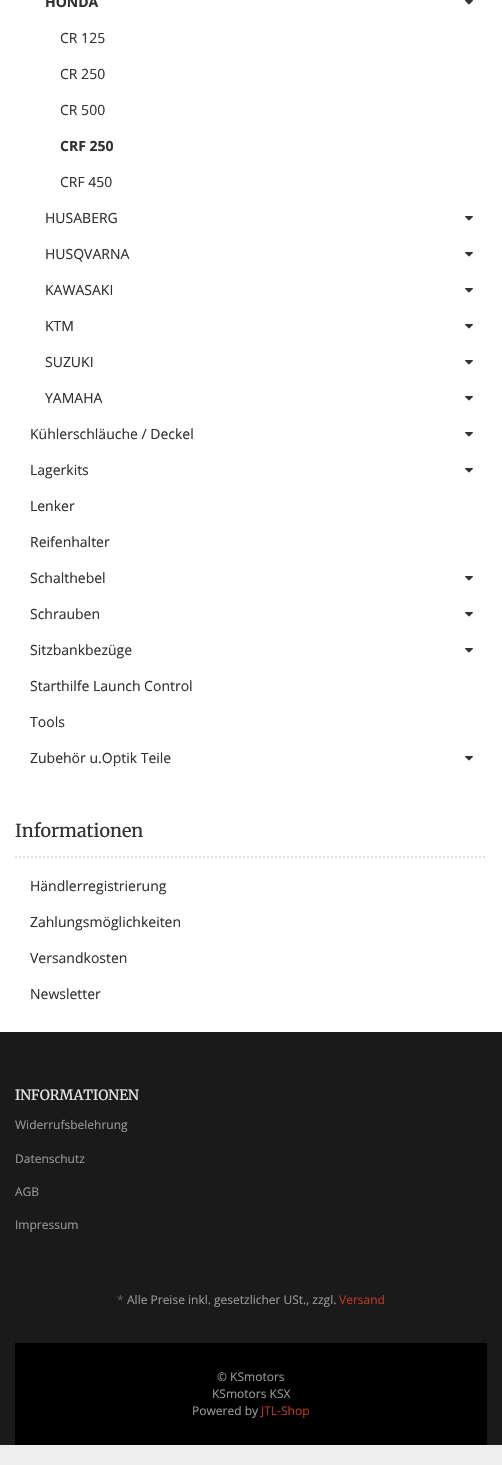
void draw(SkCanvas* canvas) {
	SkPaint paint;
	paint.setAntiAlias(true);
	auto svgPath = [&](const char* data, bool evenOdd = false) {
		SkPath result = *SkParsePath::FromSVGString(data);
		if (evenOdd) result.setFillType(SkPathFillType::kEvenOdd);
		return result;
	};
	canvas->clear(0xffeeeeee);
	paint.setColor(0xffffffff);
	canvas->drawRect(SkRect::MakeXYWH(0, 0, 502, 1032), paint);
	SkFont f1(fontMgr->matchFamilyStyle("Open Sans", SkFontStyle::Bold()), 14);
	f1.setSubpixel(true);
	paint.setColor(0xff313131);
	canvas->drawString("HONDA", 45, 7, f1, paint);
	canvas->drawImageRect(SkImages::DeferredFromEncodedData(SkData::MakeFromFileName("img1.png")), SkRect::MakeXYWH(465, 0, 8, 5), SkSamplingOptions());
	SkFont f2(fontMgr->matchFamilyStyle("Open Sans", SkFontStyle::Normal()), 14);
	f2.setSubpixel(true);
	canvas->drawString("CR 125", 60, 43, f2, paint);
	canvas->drawString("CR 250", 60, 79, f2, paint);
	canvas->drawString("CR 500", 60, 115, f2, paint);
	canvas->drawString("CRF 250", 60, 151, f1, paint);
	canvas->drawString("CRF 450", 60, 187, f2, paint);
	canvas->drawString("HUSABERG", 45, 223, f2, paint);
	canvas->drawImageRect(SkImages::DeferredFromEncodedData(SkData::MakeFromFileName("img1.png")), SkRect::MakeXYWH(465, 216, 8, 5), SkSamplingOptions());
	canvas->drawString("HUSQVARNA", 45, 259, f2, paint);
	canvas->drawImageRect(SkImages::DeferredFromEncodedData(SkData::MakeFromFileName("img1.png")), SkRect::MakeXYWH(465, 252, 8, 5), SkSamplingOptions());
	canvas->drawString("KAWASAKI", 45, 295, f2, paint);
	canvas->drawImageRect(SkImages::DeferredFromEncodedData(SkData::MakeFromFileName("img1.png")), SkRect::MakeXYWH(465, 288, 8, 5), SkSamplingOptions());
	canvas->drawString("KTM", 45, 331, f2, paint);
	canvas->drawImageRect(SkImages::DeferredFromEncodedData(SkData::MakeFromFileName("img1.png")), SkRect::MakeXYWH(465, 324, 8, 5), SkSamplingOptions());
	canvas->drawString("SUZUKI", 45, 367, f2, paint);
	canvas->drawImageRect(SkImages::DeferredFromEncodedData(SkData::MakeFromFileName("img1.png")), SkRect::MakeXYWH(465, 360, 8, 5), SkSamplingOptions());
	canvas->drawString("YAMAHA", 45, 403, f2, paint);
	canvas->drawImageRect(SkImages::DeferredFromEncodedData(SkData::MakeFromFileName("img1.png")), SkRect::MakeXYWH(465, 396, 8, 5), SkSamplingOptions());
	canvas->drawString("Kühlerschläuche / Deckel", 30, 439, f2, paint);
	canvas->drawImageRect(SkImages::DeferredFromEncodedData(SkData::MakeFromFileName("img1.png")), SkRect::MakeXYWH(465, 432, 8, 5), SkSamplingOptions());
	canvas->drawString("Lagerkits", 30, 475, f2, paint);
	canvas->drawImageRect(SkImages::DeferredFromEncodedData(SkData::MakeFromFileName("img1.png")), SkRect::MakeXYWH(465, 468, 8, 5), SkSamplingOptions());
	canvas->drawString("Lenker", 30, 511, f2, paint);
	canvas->drawString("Reifenhalter", 30, 547, f2, paint);
	canvas->drawString("Schalthebel", 30, 583, f2, paint);
	canvas->drawImageRect(SkImages::DeferredFromEncodedData(SkData::MakeFromFileName("img1.png")), SkRect::MakeXYWH(465, 576, 8, 5), SkSamplingOptions());
	canvas->drawString("Schrauben", 30, 619, f2, paint);
	canvas->drawImageRect(SkImages::DeferredFromEncodedData(SkData::MakeFromFileName("img1.png")), SkRect::MakeXYWH(465, 612, 8, 5), SkSamplingOptions());
	canvas->drawString("Sitzbankbezüge", 30, 655, f2, paint);
	canvas->drawImageRect(SkImages::DeferredFromEncodedData(SkData::MakeFromFileName("img1.png")), SkRect::MakeXYWH(465, 648, 8, 5), SkSamplingOptions());
	canvas->drawString("Starthilfe Launch Control", 30, 691, f2, paint);
	canvas->drawString("Tools", 30, 727, f2, paint);
	canvas->drawString("Zubehör u.Optik Teile", 30, 763, f2, paint);
	canvas->drawImageRect(SkImages::DeferredFromEncodedData(SkData::MakeFromFileName("img1.png")), SkRect::MakeXYWH(465, 756, 8, 5), SkSamplingOptions());
	paint.setStroke(true);
	paint.setStrokeWidth(2);
	paint.setColor(0xffdfdfdf);
	paint.setPathEffect(SkDashPathEffect::Make({{2, 2}}, 0));
	canvas->drawPath(svgPath("M15 857H487"), paint);
	paint.setPathEffect(nullptr);
	SkFont f3(fontMgr->matchFamilyStyle("Merriweather", SkFontStyle::Normal()), 18);
	f3.setSubpixel(true);
	paint.setStroke(false);
	paint.setColor(0xff313131);
	canvas->drawString("Informationen", 15, 837, f3, paint);
	canvas->drawString("Händlerregistrierung", 30, 891, f2, paint);
	canvas->drawString("Zahlungsmöglichkeiten", 30, 927, f2, paint);
	canvas->drawString("Versandkosten", 30, 963, f2, paint);
	canvas->drawString("Newsletter", 30, 999, f2, paint);
	paint.setColor(0xff1a1a1a);
	canvas->drawRect(SkRect::MakeXYWH(0, 1032, 502, 413), paint);
	SkFont f4(fontMgr->matchFamilyStyle("Merriweather", SkFontStyle::Normal()), 14);
	f4.setSubpixel(true);
	paint.setColor(0xffe6e6e6);
	canvas->drawString("INFORMATIONEN", 15, 1100, f4, paint);
	SkFont f5(fontMgr->matchFamilyStyle("Open Sans", SkFontStyle::Normal()), 12);
	f5.setSubpixel(true);
	paint.setColor(0xff9a9a9a);
	canvas->drawString("Widerrufsbelehrung", 15, 1129, f5, paint);
	canvas->drawString("Datenschutz", 15, 1163, f5, paint);
	canvas->drawString("AGB", 15, 1196, f5, paint);
	canvas->drawString("Impressum", 15, 1229, f5, paint);
	paint.setColor(0xff606060);
	canvas->drawString("*", 117, 1304, f5, paint);
	paint.setColor(0xff9a9a9a);
	canvas->drawString("Alle Preise inkl. gesetzlicher USt., zzgl.", 127, 1304, f5, paint);
	paint.setColor(0xffbc3726);
	canvas->drawString("Versand", 339, 1304, f5, paint);
	paint.setColor(0xff000000);
	canvas->drawRect(SkRect::MakeXYWH(15, 1343, 472, 102), paint);
	paint.setColor(0xff9a9a9a);
	canvas->drawString("© KSmotors", 217, 1381, f5, paint);
	canvas->drawString("KSmotors KSX", 212, 1398, f5, paint);
	canvas->drawString("Powered by", 192, 1415, f5, paint);
	paint.setColor(0xffbc3726);
	canvas->drawString("JTL-Shop", 261, 1415, f5, paint);
}
